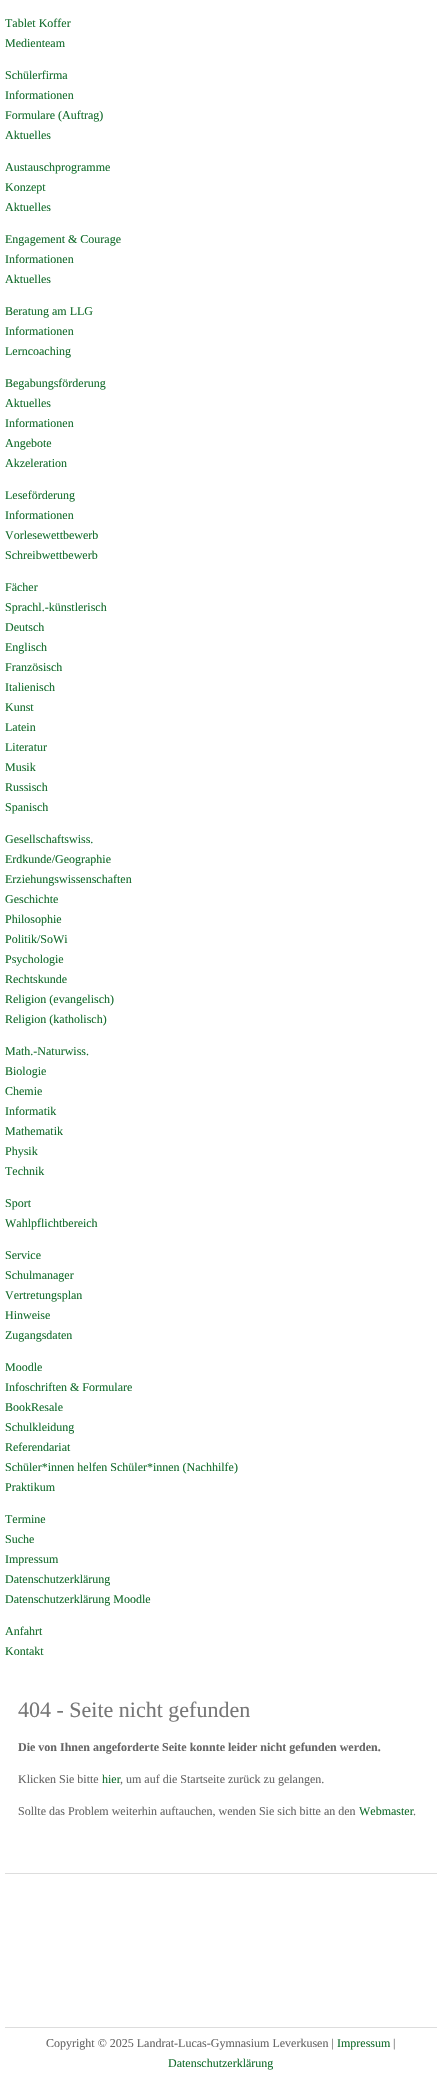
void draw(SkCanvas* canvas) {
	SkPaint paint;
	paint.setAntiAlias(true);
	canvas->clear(0xffffffff);
	SkFont f1(fontMgr->matchFamilyStyle("Liberation Serif", SkFontStyle::Normal()), 12);
	f1.setSubpixel(true);
	paint.setColor(0xff156d2e);
	canvas->drawString("Tablet Koffer", 5, 27, f1, paint);
	canvas->drawString("Medienteam", 5, 47, f1, paint);
	canvas->drawString("Schülerfirma", 5, 79, f1, paint);
	canvas->drawString("Informationen", 5, 99, f1, paint);
	canvas->drawString("Formulare (Auftrag)", 5, 119, f1, paint);
	canvas->drawString("Aktuelles", 5, 139, f1, paint);
	canvas->drawString("Austauschprogramme", 5, 171, f1, paint);
	canvas->drawString("Konzept", 5, 191, f1, paint);
	canvas->drawString("Aktuelles", 5, 211, f1, paint);
	canvas->drawString("Engagement & Courage", 5, 243, f1, paint);
	canvas->drawString("Informationen", 5, 263, f1, paint);
	canvas->drawString("Aktuelles", 5, 283, f1, paint);
	canvas->drawString("Beratung am LLG", 5, 315, f1, paint);
	canvas->drawString("Informationen", 5, 335, f1, paint);
	canvas->drawString("Lerncoaching", 5, 355, f1, paint);
	canvas->drawString("Begabungsförderung", 5, 387, f1, paint);
	canvas->drawString("Aktuelles", 5, 407, f1, paint);
	canvas->drawString("Informationen", 5, 427, f1, paint);
	canvas->drawString("Angebote", 5, 447, f1, paint);
	canvas->drawString("Akzeleration", 5, 467, f1, paint);
	canvas->drawString("Leseförderung", 5, 499, f1, paint);
	canvas->drawString("Informationen", 5, 519, f1, paint);
	canvas->drawString("Vorlesewettbewerb", 5, 539, f1, paint);
	canvas->drawString("Schreibwettbewerb", 5, 559, f1, paint);
	canvas->drawString("Fächer", 5, 591, f1, paint);
	canvas->drawString("Sprachl.-künstlerisch", 5, 611, f1, paint);
	canvas->drawString("Deutsch", 5, 631, f1, paint);
	canvas->drawString("Englisch", 5, 651, f1, paint);
	canvas->drawString("Französisch", 5, 671, f1, paint);
	canvas->drawString("Italienisch", 5, 691, f1, paint);
	canvas->drawString("Kunst", 5, 711, f1, paint);
	canvas->drawString("Latein", 5, 731, f1, paint);
	canvas->drawString("Literatur", 5, 751, f1, paint);
	canvas->drawString("Musik", 5, 771, f1, paint);
	canvas->drawString("Russisch", 5, 791, f1, paint);
	canvas->drawString("Spanisch", 5, 811, f1, paint);
	canvas->drawString("Gesellschaftswiss.", 5, 843, f1, paint);
	canvas->drawString("Erdkunde/Geographie", 5, 863, f1, paint);
	canvas->drawString("Erziehungswissenschaften", 5, 883, f1, paint);
	canvas->drawString("Geschichte", 5, 903, f1, paint);
	canvas->drawString("Philosophie", 5, 923, f1, paint);
	canvas->drawString("Politik/SoWi", 5, 943, f1, paint);
	canvas->drawString("Psychologie", 5, 963, f1, paint);
	canvas->drawString("Rechtskunde", 5, 983, f1, paint);
	canvas->drawString("Religion (evangelisch)", 5, 1003, f1, paint);
	canvas->drawString("Religion (katholisch)", 5, 1023, f1, paint);
	canvas->drawString("Math.-Naturwiss.", 5, 1055, f1, paint);
	canvas->drawString("Biologie", 5, 1075, f1, paint);
	canvas->drawString("Chemie", 5, 1095, f1, paint);
	canvas->drawString("Informatik", 5, 1115, f1, paint);
	canvas->drawString("Mathematik", 5, 1135, f1, paint);
	canvas->drawString("Physik", 5, 1155, f1, paint);
	canvas->drawString("Technik", 5, 1175, f1, paint);
	canvas->drawString("Sport", 5, 1207, f1, paint);
	canvas->drawString("Wahlpflichtbereich", 5, 1227, f1, paint);
	canvas->drawString("Service", 5, 1259, f1, paint);
	canvas->drawString("Schulmanager", 5, 1279, f1, paint);
	canvas->drawString("Vertretungsplan", 5, 1299, f1, paint);
	canvas->drawString("Hinweise", 5, 1319, f1, paint);
	canvas->drawString("Zugangsdaten", 5, 1339, f1, paint);
	canvas->drawString("Moodle", 5, 1371, f1, paint);
	canvas->drawString("Infoschriften & Formulare", 5, 1391, f1, paint);
	canvas->drawString("BookResale", 5, 1411, f1, paint);
	canvas->drawString("Schulkleidung", 5, 1431, f1, paint);
	canvas->drawString("Referendariat", 5, 1451, f1, paint);
	canvas->drawString("Schüler*innen helfen Schüler*innen (Nachhilfe)", 5, 1471, f1, paint);
	canvas->drawString("Praktikum", 5, 1491, f1, paint);
	canvas->drawString("Termine", 5, 1523, f1, paint);
	canvas->drawString("Suche", 5, 1543, f1, paint);
	canvas->drawString("Impressum", 5, 1563, f1, paint);
	canvas->drawString("Datenschutzerklärung", 5, 1583, f1, paint);
	canvas->drawString("Datenschutzerklärung Moodle", 5, 1603, f1, paint);
	canvas->drawString("Anfahrt", 5, 1635, f1, paint);
	canvas->drawString("Kontakt", 5, 1655, f1, paint);
	SkFont f2(fontMgr->matchFamilyStyle("Liberation Serif", SkFontStyle::Normal()), 22);
	f2.setSubpixel(true);
	paint.setColor(0xff777777);
	canvas->drawString("404 - Seite nicht gefunden", 18, 1717, f2, paint);
	SkFont f3(fontMgr->matchFamilyStyle("Liberation Serif", SkFontStyle::Bold()), 12);
	f3.setSubpixel(true);
	paint.setColor(0xff666666);
	canvas->drawString("Die von Ihnen angeforderte Seite konnte leider nicht gefunden werden.", 18, 1751, f3, paint);
	canvas->drawString("Klicken Sie bitte", 18, 1783, f1, paint);
	paint.setColor(0xff156d2e);
	canvas->drawString("hier", 102, 1783, f1, paint);
	paint.setColor(0xff666666);
	canvas->drawString(", um auf die Startseite zurück zu gelangen.", 120, 1783, f1, paint);
	canvas->drawString("Sollte das Problem weiterhin auftauchen, wenden Sie sich bitte an den", 18, 1815, f1, paint);
	paint.setColor(0xff156d2e);
	canvas->drawString("Webmaster", 359, 1815, f1, paint);
	paint.setColor(0xff666666);
	canvas->drawString(".", 413, 1815, f1, paint);
	paint.setColor(0xffdddddd);
	canvas->drawRect(SkRect::MakeXYWH(5, 1873, 432, 1), paint);
	canvas->drawRect(SkRect::MakeXYWH(5, 2027, 432, 1), paint);
	paint.setColor(0xff666666);
	canvas->drawString("Copyright © 2025 Landrat-Lucas-Gymnasium Leverkusen |", 46, 2047, f1, paint);
	paint.setColor(0xff156d2e);
	canvas->drawString("Impressum", 337, 2047, f1, paint);
	paint.setColor(0xff666666);
	canvas->drawString("|", 393, 2047, f1, paint);
	paint.setColor(0xff156d2e);
	canvas->drawString("Datenschutzerklärung", 168, 2067, f1, paint);
}
